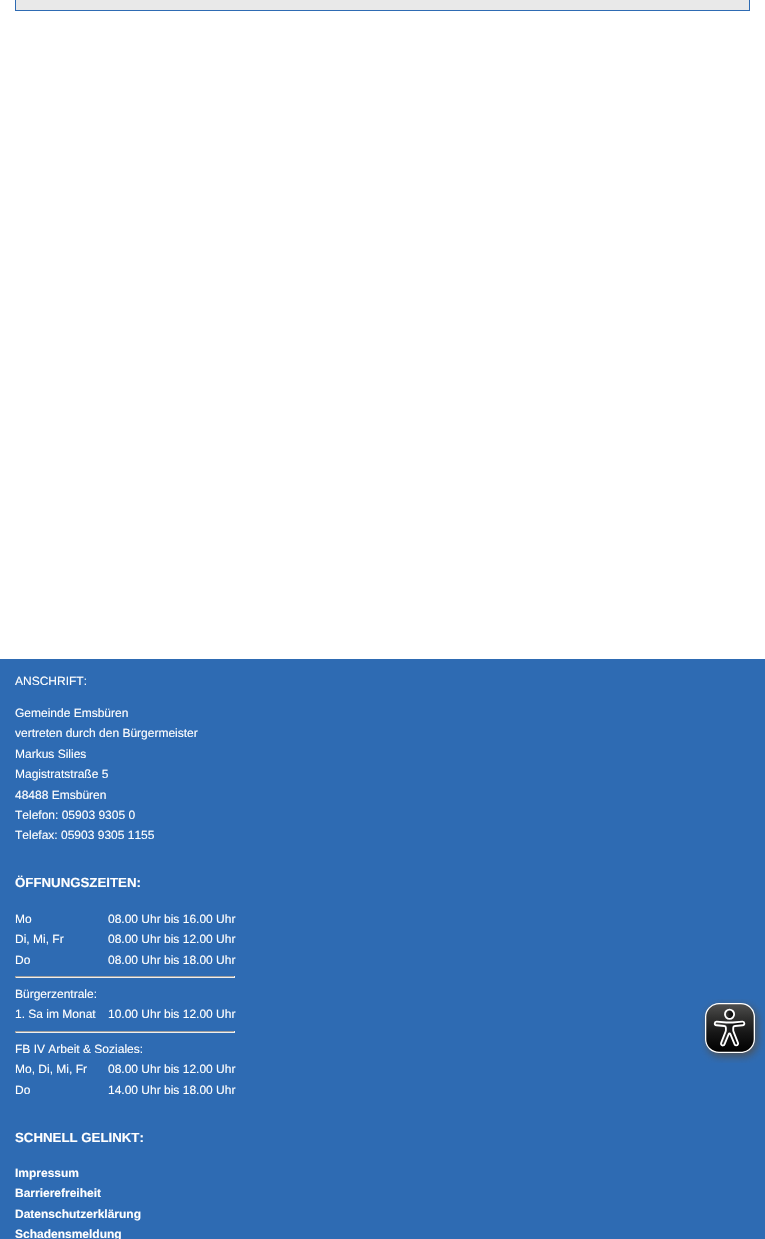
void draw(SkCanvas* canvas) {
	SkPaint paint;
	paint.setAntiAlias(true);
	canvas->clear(0xffffffff);
	paint.setColor(0xff2e6bb3);
	canvas->drawRect(SkRect::MakeXYWH(749, 0, 1, 11), paint);
	canvas->drawRect(SkRect::MakeXYWH(15, 10, 735, 1), paint);
	canvas->drawRect(SkRect::MakeXYWH(15, 0, 1, 11), paint);
	paint.setColor(0xffe9e9e9);
	canvas->drawRect(SkRect::MakeXYWH(16, 0, 733, 10), paint);
	paint.setColor(0xff2e6bb3);
	canvas->drawRect(SkRect::MakeXYWH(0, 659, 765, 580), paint);
	SkFont f1(fontMgr->matchFamilyStyle("Liberation Sans", SkFontStyle::Normal()), 12);
	f1.setSubpixel(true);
	paint.setColor(0xffffffff);
	canvas->drawString("ANSCHRIFT:", 15, 685, f1, paint);
	canvas->drawString("Gemeinde Emsbüren", 15, 717, f1, paint);
	canvas->drawString("vertreten durch den Bürgermeister", 15, 737, f1, paint);
	canvas->drawString("Markus Silies", 15, 758, f1, paint);
	canvas->drawString("Magistratstraße 5", 15, 778, f1, paint);
	canvas->drawString("48488 Emsbüren", 15, 799, f1, paint);
	canvas->drawString("Telefon: 05903 9305 0", 15, 819, f1, paint);
	canvas->drawString("Telefax: 05903 9305 1155", 15, 839, f1, paint);
	SkFont f2(fontMgr->matchFamilyStyle("Liberation Sans", SkFontStyle::Bold()), 13.25);
	f2.setSubpixel(true);
	canvas->drawString("ÖFFNUNGSZEITEN:", 15, 887, f2, paint);
	canvas->drawString("Mo", 15, 923, f1, paint);
	canvas->drawString("08.00 Uhr bis 16.00 Uhr", 108, 923, f1, paint);
	canvas->drawString("Di, Mi, Fr", 15, 943, f1, paint);
	canvas->drawString("08.00 Uhr bis 12.00 Uhr", 108, 943, f1, paint);
	canvas->drawString("Do", 15, 964, f1, paint);
	canvas->drawString("08.00 Uhr bis 18.00 Uhr", 108, 964, f1, paint);
	paint.setColor(0xff9f9f9f);
	canvas->drawRect(SkRect::MakeXYWH(15, 976, 220, 1), paint);
	paint.setColor(0xffeeeeee);
	canvas->drawRect(SkRect::MakeXYWH(234, 976, 1, 2), paint);
	canvas->drawRect(SkRect::MakeXYWH(15, 977, 220, 1), paint);
	paint.setColor(0xff9f9f9f);
	canvas->drawRect(SkRect::MakeXYWH(15, 976, 1, 2), paint);
	paint.setColor(0xffffffff);
	canvas->drawString("Bürgerzentrale:", 15, 998, f1, paint);
	canvas->drawString("1. Sa im Monat", 15, 1018, f1, paint);
	canvas->drawString("10.00 Uhr bis 12.00 Uhr", 108, 1018, f1, paint);
	paint.setColor(0xff9f9f9f);
	canvas->drawRect(SkRect::MakeXYWH(15, 1031, 220, 1), paint);
	paint.setColor(0xffeeeeee);
	canvas->drawRect(SkRect::MakeXYWH(234, 1031, 1, 2), paint);
	canvas->drawRect(SkRect::MakeXYWH(15, 1032, 220, 1), paint);
	paint.setColor(0xff9f9f9f);
	canvas->drawRect(SkRect::MakeXYWH(15, 1031, 1, 2), paint);
	paint.setColor(0xffffffff);
	canvas->drawString("FB IV Arbeit & Soziales:", 15, 1053, f1, paint);
	canvas->drawString("Mo, Di, Mi, Fr", 15, 1073, f1, paint);
	canvas->drawString("08.00 Uhr bis 12.00 Uhr", 108, 1073, f1, paint);
	canvas->drawString("Do", 15, 1094, f1, paint);
	canvas->drawString("14.00 Uhr bis 18.00 Uhr", 108, 1094, f1, paint);
	canvas->drawString("SCHNELL GELINKT:", 15, 1142, f2, paint);
	SkFont f3(fontMgr->matchFamilyStyle("Liberation Sans", SkFontStyle::Bold()), 12);
	f3.setSubpixel(true);
	canvas->drawString("Impressum", 15, 1177, f3, paint);
	canvas->drawString("Barrierefreiheit", 15, 1197, f3, paint);
	canvas->drawString("Datenschutzerklärung", 15, 1218, f3, paint);
	canvas->drawString("Schadensmeldung", 15, 1238, f3, paint);
	canvas->drawImageRect(SkImages::DeferredFromEncodedData(SkData::MakeFromFileName("img1.png")), SkRect::MakeXYWH(700, 999, 64, 64), SkSamplingOptions());
}
